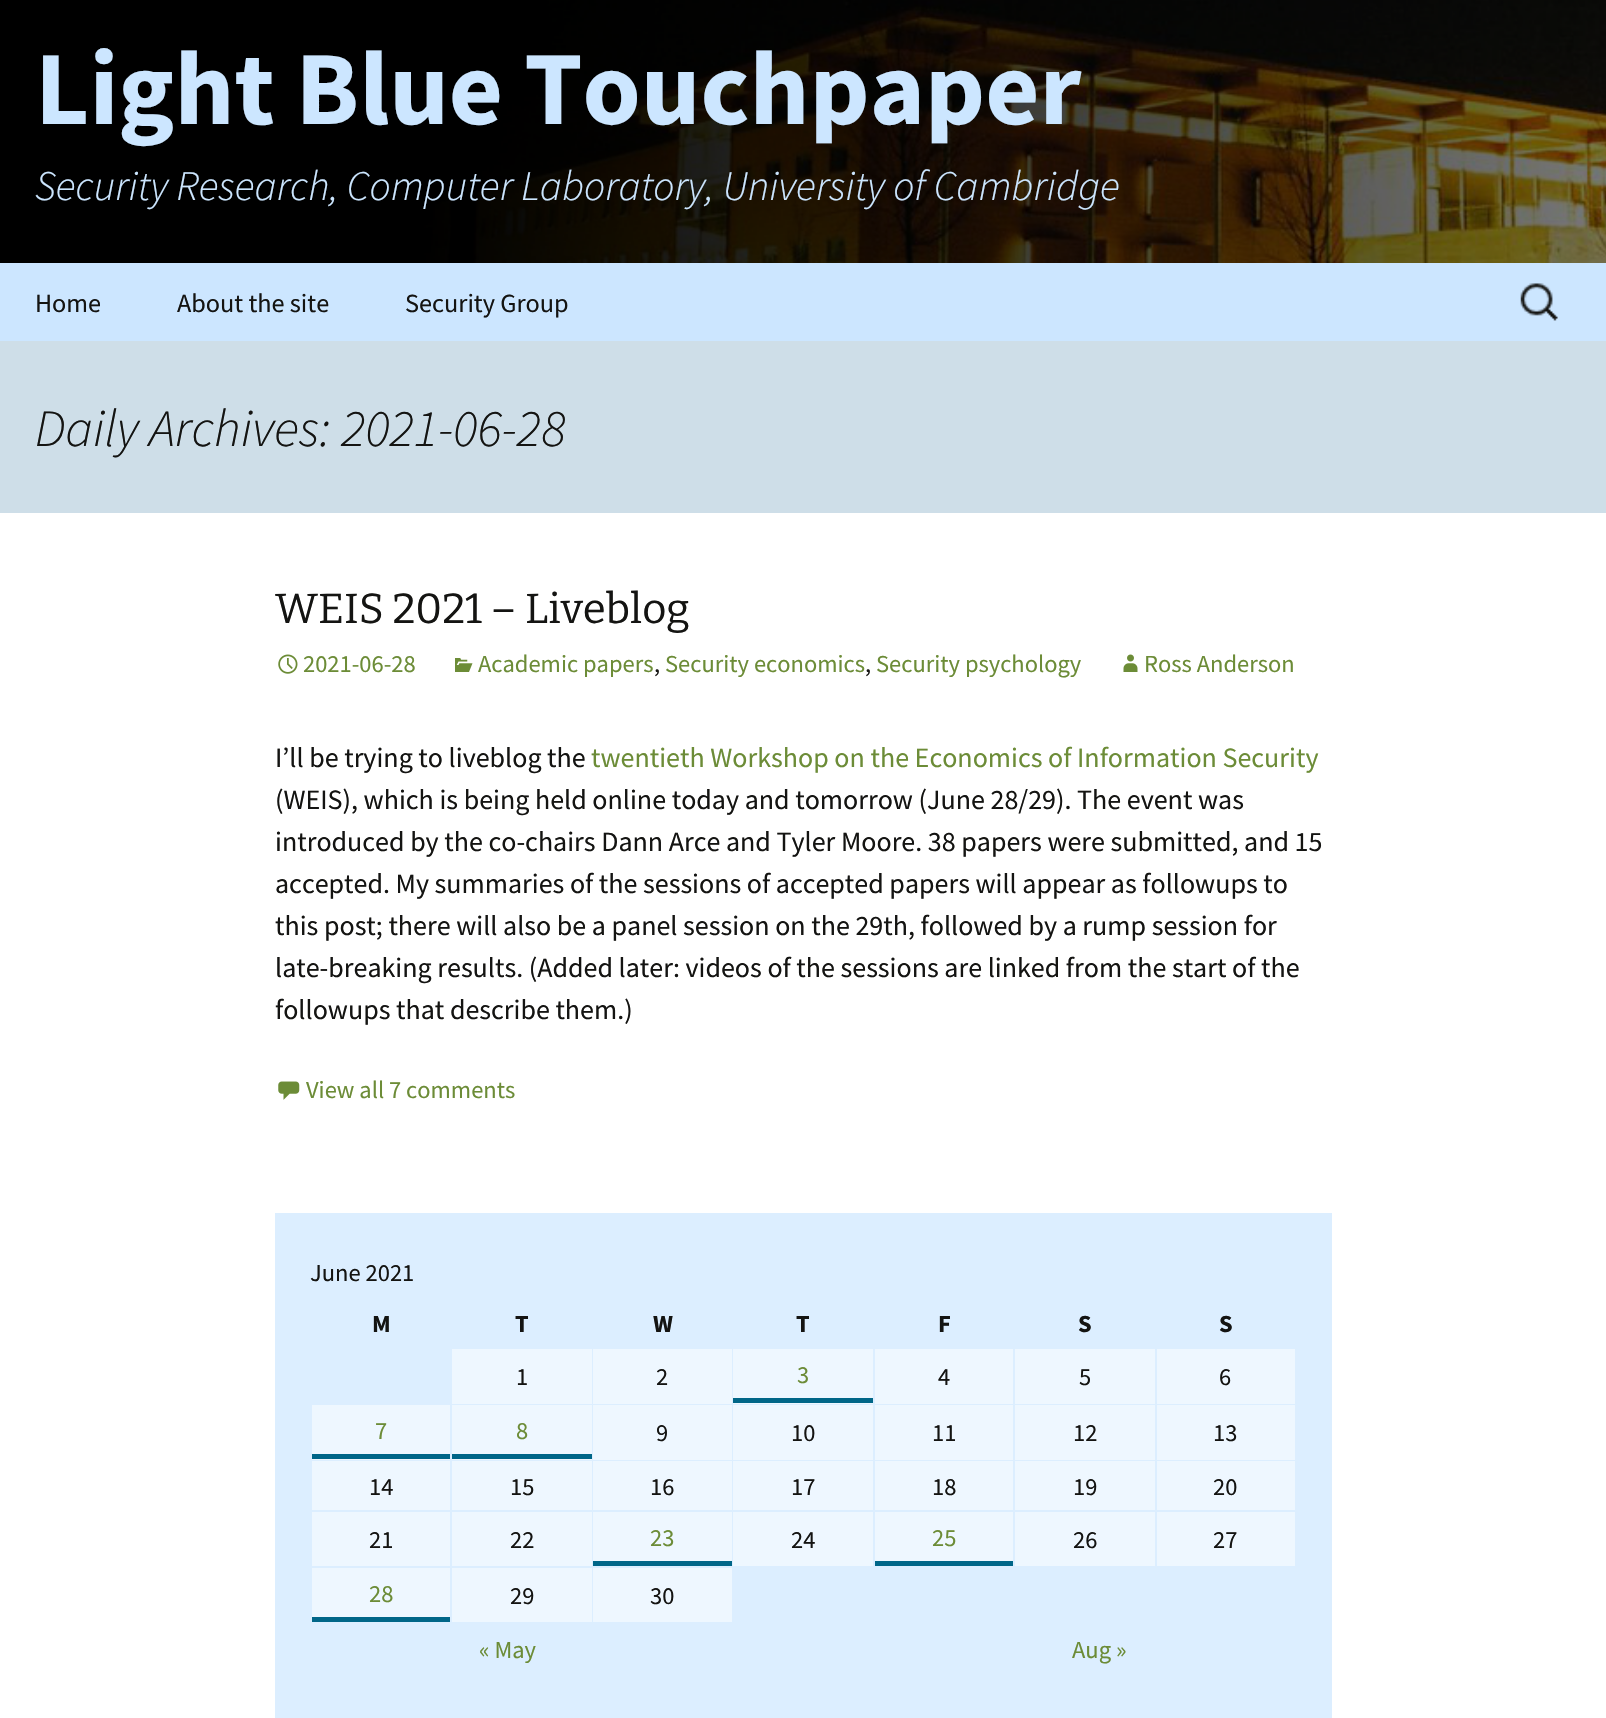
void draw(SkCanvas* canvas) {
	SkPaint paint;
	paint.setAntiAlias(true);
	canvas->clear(0xffffffff);
	canvas->drawImageRect(SkImages::DeferredFromEncodedData(SkData::MakeFromFileName("img1.png")), SkRect::MakeXYWH(0, 0, 1606, 263), SkSamplingOptions());
	SkFont f1(fontMgr->matchFamilyStyle("Source Sans Pro", SkFontStyle::Bold()), 105);
	f1.setSubpixel(true);
	paint.setColor(0xffcce6ff);
	canvas->drawString("Light Blue Touchpaper", 35, 124, f1, paint);
	SkFont f2(fontMgr->matchFamilyStyle("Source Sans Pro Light", SkFontStyle(300, SkFontStyle::kNormal_Width, SkFontStyle::kItalic_Slant)), 42);
	f2.setSubpixel(true);
	canvas->drawString("Security Research, Computer Laboratory, University of Cambridge", 35, 200, f2, paint);
	canvas->drawRect(SkRect::MakeXYWH(0, 263, 1606, 78), paint);
	SkFont f3(fontMgr->matchFamilyStyle("Source Sans Pro", SkFontStyle::Normal()), 26.25);
	f3.setSubpixel(true);
	paint.setColor(0xff141412);
	canvas->drawString("Home", 35, 312, f3, paint);
	canvas->drawString("About the site", 177, 312, f3, paint);
	canvas->drawString("Security Group", 405, 312, f3, paint);
	canvas->drawImageRect(SkImages::DeferredFromEncodedData(SkData::MakeFromFileName("img2.png")), SkRect::MakeXYWH(1520, 283, 38, 38), SkSamplingOptions());
	paint.setColor(0xffcedee8);
	canvas->drawRect(SkRect::MakeXYWH(0, 341, 1606, 172), paint);
	SkFont f4(fontMgr->matchFamilyStyle("Source Sans Pro Light", SkFontStyle(300, SkFontStyle::kNormal_Width, SkFontStyle::kItalic_Slant)), 52.5);
	f4.setSubpixel(true);
	paint.setColor(0xff141412);
	canvas->drawString("Daily Archives: 2021-06-28", 35, 446, f4, paint);
	SkFont f5(fontMgr->matchFamilyStyle("Bitter", SkFontStyle::Normal()), 42);
	f5.setSubpixel(true);
	canvas->drawString("WEIS 2021 – Liveblog", 275, 623, f5, paint);
	canvas->drawImageRect(SkImages::DeferredFromEncodedData(SkData::MakeFromFileName("img3.png")), SkRect::MakeXYWH(278, 654, 20, 20), SkSamplingOptions());
	SkFont f6(fontMgr->matchFamilyStyle("Source Sans Pro", SkFontStyle::Normal()), 24.5);
	f6.setSubpixel(true);
	paint.setColor(0xff6c8c37);
	canvas->drawString("2021-06-28", 303, 672, f6, paint);
	canvas->drawImageRect(SkImages::DeferredFromEncodedData(SkData::MakeFromFileName("img4.png")), SkRect::MakeXYWH(455, 658, 18, 14), SkSamplingOptions());
	canvas->drawString("Academic papers", 478, 672, f6, paint);
	paint.setColor(0xff141412);
	canvas->drawString(",", 654, 672, f6, paint);
	paint.setColor(0xff6c8c37);
	canvas->drawString("Security economics", 665, 672, f6, paint);
	paint.setColor(0xff141412);
	canvas->drawString(",", 865, 672, f6, paint);
	paint.setColor(0xff6c8c37);
	canvas->drawString("Security psychology", 876, 672, f6, paint);
	canvas->drawImageRect(SkImages::DeferredFromEncodedData(SkData::MakeFromFileName("img5.png")), SkRect::MakeXYWH(1123, 654, 15, 18), SkSamplingOptions());
	canvas->drawString("Ross Anderson", 1144, 672, f6, paint);
	SkFont f7(fontMgr->matchFamilyStyle("Source Sans Pro", SkFontStyle::Normal()), 28);
	f7.setSubpixel(true);
	paint.setColor(0xff141412);
	canvas->drawString("I’ll be trying to liveblog the", 275, 767, f7, paint);
	paint.setColor(0xff6c8c37);
	canvas->drawString("twentieth Workshop on the Economics of Information Security", 591, 767, f7, paint);
	paint.setColor(0xff141412);
	canvas->drawString("(WEIS), which is being held online today and tomorrow (June 28/29). The event was", 275, 809, f7, paint);
	canvas->drawString("introduced by the co-chairs Dann Arce and Tyler Moore. 38 papers were submitted, and 15", 275, 851, f7, paint);
	canvas->drawString("accepted. My summaries of the sessions of accepted papers will appear as followups to", 275, 893, f7, paint);
	canvas->drawString("this post; there will also be a panel session on the 29th, followed by a rump session for", 275, 935, f7, paint);
	canvas->drawString("late-breaking results. (Added later: videos of the sessions are linked from the start of the", 275, 977, f7, paint);
	canvas->drawString("followups that describe them.)", 275, 1019, f7, paint);
	canvas->drawImageRect(SkImages::DeferredFromEncodedData(SkData::MakeFromFileName("img6.png")), SkRect::MakeXYWH(278, 1081, 22, 19), SkSamplingOptions());
	paint.setColor(0xff6c8c37);
	canvas->drawString("View all 7 comments", 306, 1098, f6, paint);
	paint.setColor(0xffdceeff);
	canvas->drawRect(SkRect::MakeXYWH(275, 1213, 1057, 505), paint);
	paint.setColor(0xff141412);
	canvas->drawString("June 2021", 310, 1281, f6, paint);
	SkFont f8(fontMgr->matchFamilyStyle("Source Sans Pro", SkFontStyle::Bold()), 24.5);
	f8.setSubpixel(true);
	canvas->drawString("M", 372, 1332, f8, paint);
	canvas->drawString("T", 515, 1332, f8, paint);
	canvas->drawString("W", 653, 1332, f8, paint);
	canvas->drawString("T", 796, 1332, f8, paint);
	canvas->drawString("F", 938, 1332, f8, paint);
	canvas->drawString("S", 1078, 1332, f8, paint);
	canvas->drawString("S", 1219, 1332, f8, paint);
	paint.setColor(0xffeef7ff);
	canvas->drawRect(SkRect::MakeXYWH(452, 1349, 140, 55), paint);
	paint.setColor(0xff141412);
	canvas->drawString("1", 516, 1385, f6, paint);
	paint.setColor(0xffeef7ff);
	canvas->drawRect(SkRect::MakeXYWH(593, 1349, 139, 55), paint);
	paint.setColor(0xff141412);
	canvas->drawString("2", 656, 1385, f6, paint);
	paint.setColor(0xffeef7ff);
	canvas->drawRect(SkRect::MakeXYWH(733, 1349, 140, 55), paint);
	paint.setColor(0xff006688);
	canvas->drawRect(SkRect::MakeXYWH(733, 1398, 140, 5), paint);
	paint.setColor(0xff6c8c37);
	canvas->drawString("3", 797, 1383, f6, paint);
	paint.setColor(0xffeef7ff);
	canvas->drawRect(SkRect::MakeXYWH(875, 1349, 138, 55), paint);
	paint.setColor(0xff141412);
	canvas->drawString("4", 938, 1385, f6, paint);
	paint.setColor(0xffeef7ff);
	canvas->drawRect(SkRect::MakeXYWH(1015, 1349, 140, 55), paint);
	paint.setColor(0xff141412);
	canvas->drawString("5", 1079, 1385, f6, paint);
	paint.setColor(0xffeef7ff);
	canvas->drawRect(SkRect::MakeXYWH(1157, 1349, 138, 55), paint);
	paint.setColor(0xff141412);
	canvas->drawString("6", 1219, 1385, f6, paint);
	paint.setColor(0xffeef7ff);
	canvas->drawRect(SkRect::MakeXYWH(312, 1405, 138, 55), paint);
	paint.setColor(0xff006688);
	canvas->drawRect(SkRect::MakeXYWH(312, 1454, 138, 5), paint);
	paint.setColor(0xff6c8c37);
	canvas->drawString("7", 375, 1439, f6, paint);
	paint.setColor(0xffeef7ff);
	canvas->drawRect(SkRect::MakeXYWH(452, 1405, 140, 55), paint);
	paint.setColor(0xff006688);
	canvas->drawRect(SkRect::MakeXYWH(452, 1454, 140, 5), paint);
	paint.setColor(0xff6c8c37);
	canvas->drawString("8", 516, 1439, f6, paint);
	paint.setColor(0xffeef7ff);
	canvas->drawRect(SkRect::MakeXYWH(593, 1405, 139, 55), paint);
	paint.setColor(0xff141412);
	canvas->drawString("9", 656, 1441, f6, paint);
	paint.setColor(0xffeef7ff);
	canvas->drawRect(SkRect::MakeXYWH(733, 1405, 140, 55), paint);
	paint.setColor(0xff141412);
	canvas->drawString("10", 791, 1441, f6, paint);
	paint.setColor(0xffeef7ff);
	canvas->drawRect(SkRect::MakeXYWH(875, 1405, 138, 55), paint);
	paint.setColor(0xff141412);
	canvas->drawString("11", 932, 1441, f6, paint);
	paint.setColor(0xffeef7ff);
	canvas->drawRect(SkRect::MakeXYWH(1015, 1405, 140, 55), paint);
	paint.setColor(0xff141412);
	canvas->drawString("12", 1073, 1441, f6, paint);
	paint.setColor(0xffeef7ff);
	canvas->drawRect(SkRect::MakeXYWH(1157, 1405, 138, 55), paint);
	paint.setColor(0xff141412);
	canvas->drawString("13", 1213, 1441, f6, paint);
	paint.setColor(0xffeef7ff);
	canvas->drawRect(SkRect::MakeXYWH(312, 1461, 138, 49), paint);
	paint.setColor(0xff141412);
	canvas->drawString("14", 369, 1495, f6, paint);
	paint.setColor(0xffeef7ff);
	canvas->drawRect(SkRect::MakeXYWH(452, 1461, 140, 49), paint);
	paint.setColor(0xff141412);
	canvas->drawString("15", 510, 1495, f6, paint);
	paint.setColor(0xffeef7ff);
	canvas->drawRect(SkRect::MakeXYWH(593, 1461, 139, 49), paint);
	paint.setColor(0xff141412);
	canvas->drawString("16", 650, 1495, f6, paint);
	paint.setColor(0xffeef7ff);
	canvas->drawRect(SkRect::MakeXYWH(733, 1461, 140, 49), paint);
	paint.setColor(0xff141412);
	canvas->drawString("17", 791, 1495, f6, paint);
	paint.setColor(0xffeef7ff);
	canvas->drawRect(SkRect::MakeXYWH(875, 1461, 138, 49), paint);
	paint.setColor(0xff141412);
	canvas->drawString("18", 932, 1495, f6, paint);
	paint.setColor(0xffeef7ff);
	canvas->drawRect(SkRect::MakeXYWH(1015, 1461, 140, 49), paint);
	paint.setColor(0xff141412);
	canvas->drawString("19", 1073, 1495, f6, paint);
	paint.setColor(0xffeef7ff);
	canvas->drawRect(SkRect::MakeXYWH(1157, 1461, 138, 49), paint);
	paint.setColor(0xff141412);
	canvas->drawString("20", 1213, 1495, f6, paint);
	paint.setColor(0xffeef7ff);
	canvas->drawRect(SkRect::MakeXYWH(312, 1512, 138, 54), paint);
	paint.setColor(0xff141412);
	canvas->drawString("21", 369, 1548, f6, paint);
	paint.setColor(0xffeef7ff);
	canvas->drawRect(SkRect::MakeXYWH(452, 1512, 140, 54), paint);
	paint.setColor(0xff141412);
	canvas->drawString("22", 510, 1548, f6, paint);
	paint.setColor(0xffeef7ff);
	canvas->drawRect(SkRect::MakeXYWH(593, 1512, 139, 49), paint);
	paint.setColor(0xff006688);
	canvas->drawRect(SkRect::MakeXYWH(593, 1561, 139, 5), paint);
	paint.setColor(0xff6c8c37);
	canvas->drawString("23", 650, 1546, f6, paint);
	paint.setColor(0xffeef7ff);
	canvas->drawRect(SkRect::MakeXYWH(733, 1512, 140, 54), paint);
	paint.setColor(0xff141412);
	canvas->drawString("24", 791, 1548, f6, paint);
	paint.setColor(0xffeef7ff);
	canvas->drawRect(SkRect::MakeXYWH(875, 1512, 138, 49), paint);
	paint.setColor(0xff006688);
	canvas->drawRect(SkRect::MakeXYWH(875, 1561, 138, 5), paint);
	paint.setColor(0xff6c8c37);
	canvas->drawString("25", 932, 1546, f6, paint);
	paint.setColor(0xffeef7ff);
	canvas->drawRect(SkRect::MakeXYWH(1015, 1512, 140, 54), paint);
	paint.setColor(0xff141412);
	canvas->drawString("26", 1073, 1548, f6, paint);
	paint.setColor(0xffeef7ff);
	canvas->drawRect(SkRect::MakeXYWH(1157, 1512, 138, 54), paint);
	paint.setColor(0xff141412);
	canvas->drawString("27", 1213, 1548, f6, paint);
	paint.setColor(0xffeef7ff);
	canvas->drawRect(SkRect::MakeXYWH(312, 1568, 138, 49), paint);
	paint.setColor(0xff006688);
	canvas->drawRect(SkRect::MakeXYWH(312, 1617, 138, 5), paint);
	paint.setColor(0xff6c8c37);
	canvas->drawString("28", 369, 1602, f6, paint);
	paint.setColor(0xffeef7ff);
	canvas->drawRect(SkRect::MakeXYWH(452, 1568, 140, 54), paint);
	paint.setColor(0xff141412);
	canvas->drawString("29", 510, 1604, f6, paint);
	paint.setColor(0xffeef7ff);
	canvas->drawRect(SkRect::MakeXYWH(593, 1568, 139, 54), paint);
	paint.setColor(0xff141412);
	canvas->drawString("30", 650, 1604, f6, paint);
	paint.setColor(0xff6c8c37);
	canvas->drawString("« May", 479, 1658, f6, paint);
	canvas->drawString("Aug »", 1072, 1658, f6, paint);
}
